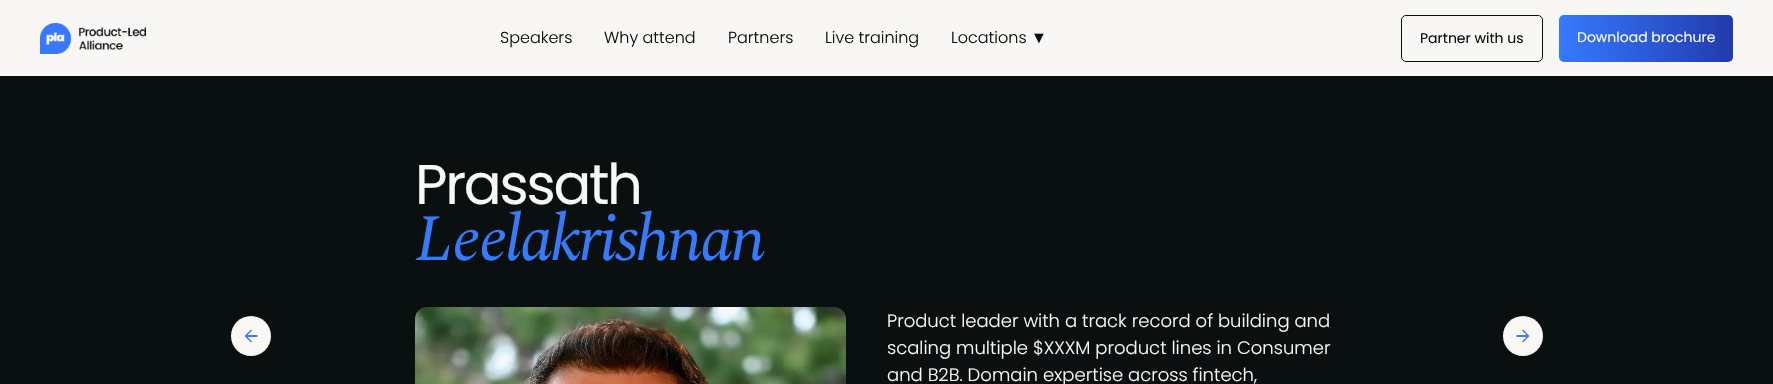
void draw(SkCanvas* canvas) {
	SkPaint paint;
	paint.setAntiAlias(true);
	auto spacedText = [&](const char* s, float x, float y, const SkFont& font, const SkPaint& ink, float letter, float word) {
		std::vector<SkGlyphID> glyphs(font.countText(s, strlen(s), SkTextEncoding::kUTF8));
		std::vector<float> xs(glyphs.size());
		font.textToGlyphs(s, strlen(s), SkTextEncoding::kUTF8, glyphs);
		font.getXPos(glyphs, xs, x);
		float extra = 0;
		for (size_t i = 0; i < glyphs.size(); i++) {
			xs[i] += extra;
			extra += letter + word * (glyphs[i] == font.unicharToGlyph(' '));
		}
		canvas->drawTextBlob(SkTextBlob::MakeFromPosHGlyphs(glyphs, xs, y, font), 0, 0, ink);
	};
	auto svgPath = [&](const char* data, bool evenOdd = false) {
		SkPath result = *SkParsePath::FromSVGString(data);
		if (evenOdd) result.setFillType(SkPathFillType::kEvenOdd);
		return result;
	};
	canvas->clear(0xfff8f7f6);
	canvas->drawImageRect(SkImages::DeferredFromEncodedData(SkData::MakeFromFileName("img1.png")), SkRect::MakeXYWH(40, 23, 106, 31), SkSamplingOptions());
	SkFont f1(fontMgr->matchFamilyStyle("Poppins", SkFontStyle(300, SkFontStyle::kNormal_Width, SkFontStyle::kUpright_Slant)), 16);
	f1.setSubpixel(true);
	paint.setColor(0xff09100f);
	canvas->drawString("Speakers", 500, 43, f1, paint);
	canvas->drawString("Why attend", 604, 43, f1, paint);
	canvas->drawString("Partners", 728, 43, f1, paint);
	canvas->drawString("Live training", 825, 43, f1, paint);
	canvas->drawString("Locations", 951, 43, f1, paint);
	SkFont f2(fontMgr->matchFamilyStyle("Liberation Sans", SkFontStyle::Normal()), 16);
	f2.setSubpixel(true);
	canvas->drawString("▼", 1031, 43, f2, paint);
	paint.setStroke(true);
	paint.setStrokeWidth(1);
	canvas->drawRoundRect(SkRect::MakeXYWH(1401.5, 15.5, 141, 46), 4.5, 4.5, paint);
	SkFont f3(fontMgr->matchFamilyStyle("Poppins", SkFontStyle::Normal()), 14);
	f3.setSubpixel(true);
	paint.setStroke(false);
	canvas->drawString("Partner with us", 1420, 43, f3, paint);
	{
		const SkColor colors[] = {0xff367aff, 0xff233aac};
		const float stops[] = {0, 1};
		const SkPoint ends[] = {{1559, 39}, {1733, 38}};
		paint.setShader(SkGradientShader::MakeLinear(ends, colors, stops, 2, SkTileMode::kClamp));
		paint.setAlpha(255);
	}
	canvas->drawRoundRect(SkRect::MakeXYWH(1559, 15, 174, 47), 5, 5, paint);
	paint.setShader(nullptr);
	paint.setColor(0xfff9f8f5);
	canvas->drawString("Download brochure", 1577, 42, f3, paint);
	paint.setColor(0xff09100f);
	canvas->drawRect(SkRect::MakeXYWH(0, 76, 1773, 308), paint);
	paint.setColor(0xfff9f8f5);
	canvas->drawCircle(251, 336, 20, paint);
	paint.setColor(0xff367aff);
	canvas->drawPath(svgPath("M257.5 335H247.5L252 330.5L251 329.5L244.5 336L251 342.5L252 341.5L247.5 337H257.5Z"), paint);
	SkFont f4(fontMgr->matchFamilyStyle("Poppins", SkFontStyle::Normal()), 56);
	f4.setSubpixel(true);
	paint.setColor(0xfff9f8f5);
	spacedText("Prassath", 415, 204, f4, paint, -2.25, 0);
	SkFont f5(fontMgr->matchFamilyStyle("Spectral", SkFontStyle::Italic()), 66);
	f5.setSubpixel(true);
	paint.setColor(0xff367aff);
	spacedText("Leelakrishnan", 415, 260, f5, paint, -2.6, 0);
	canvas->drawImageRect(SkImages::DeferredFromEncodedData(SkData::MakeFromFileName("img2.png")), SkRect::MakeXYWH(415, 307, 431, 77), SkSamplingOptions());
	SkFont f6(fontMgr->matchFamilyStyle("Poppins", SkFontStyle(300, SkFontStyle::kNormal_Width, SkFontStyle::kUpright_Slant)), 18);
	f6.setSubpixel(true);
	paint.setColor(0xfff9f8f5);
	canvas->drawString("Product leader with a track record of building and", 887, 327, f6, paint);
	canvas->drawString("scaling multiple $XXXM product lines in Consumer", 887, 354, f6, paint);
	canvas->drawString("and B2B. Domain expertise across fintech,", 887, 381, f6, paint);
	canvas->drawCircle(1523, 336, 20, paint);
	paint.setColor(0xff367aff);
	canvas->drawPath(svgPath("M1516.5 337H1526.5L1522 341.5L1523 342.5L1529.5 336L1523 329.5L1522 330.5L1526.5 335H1516.5Z"), paint);
}
